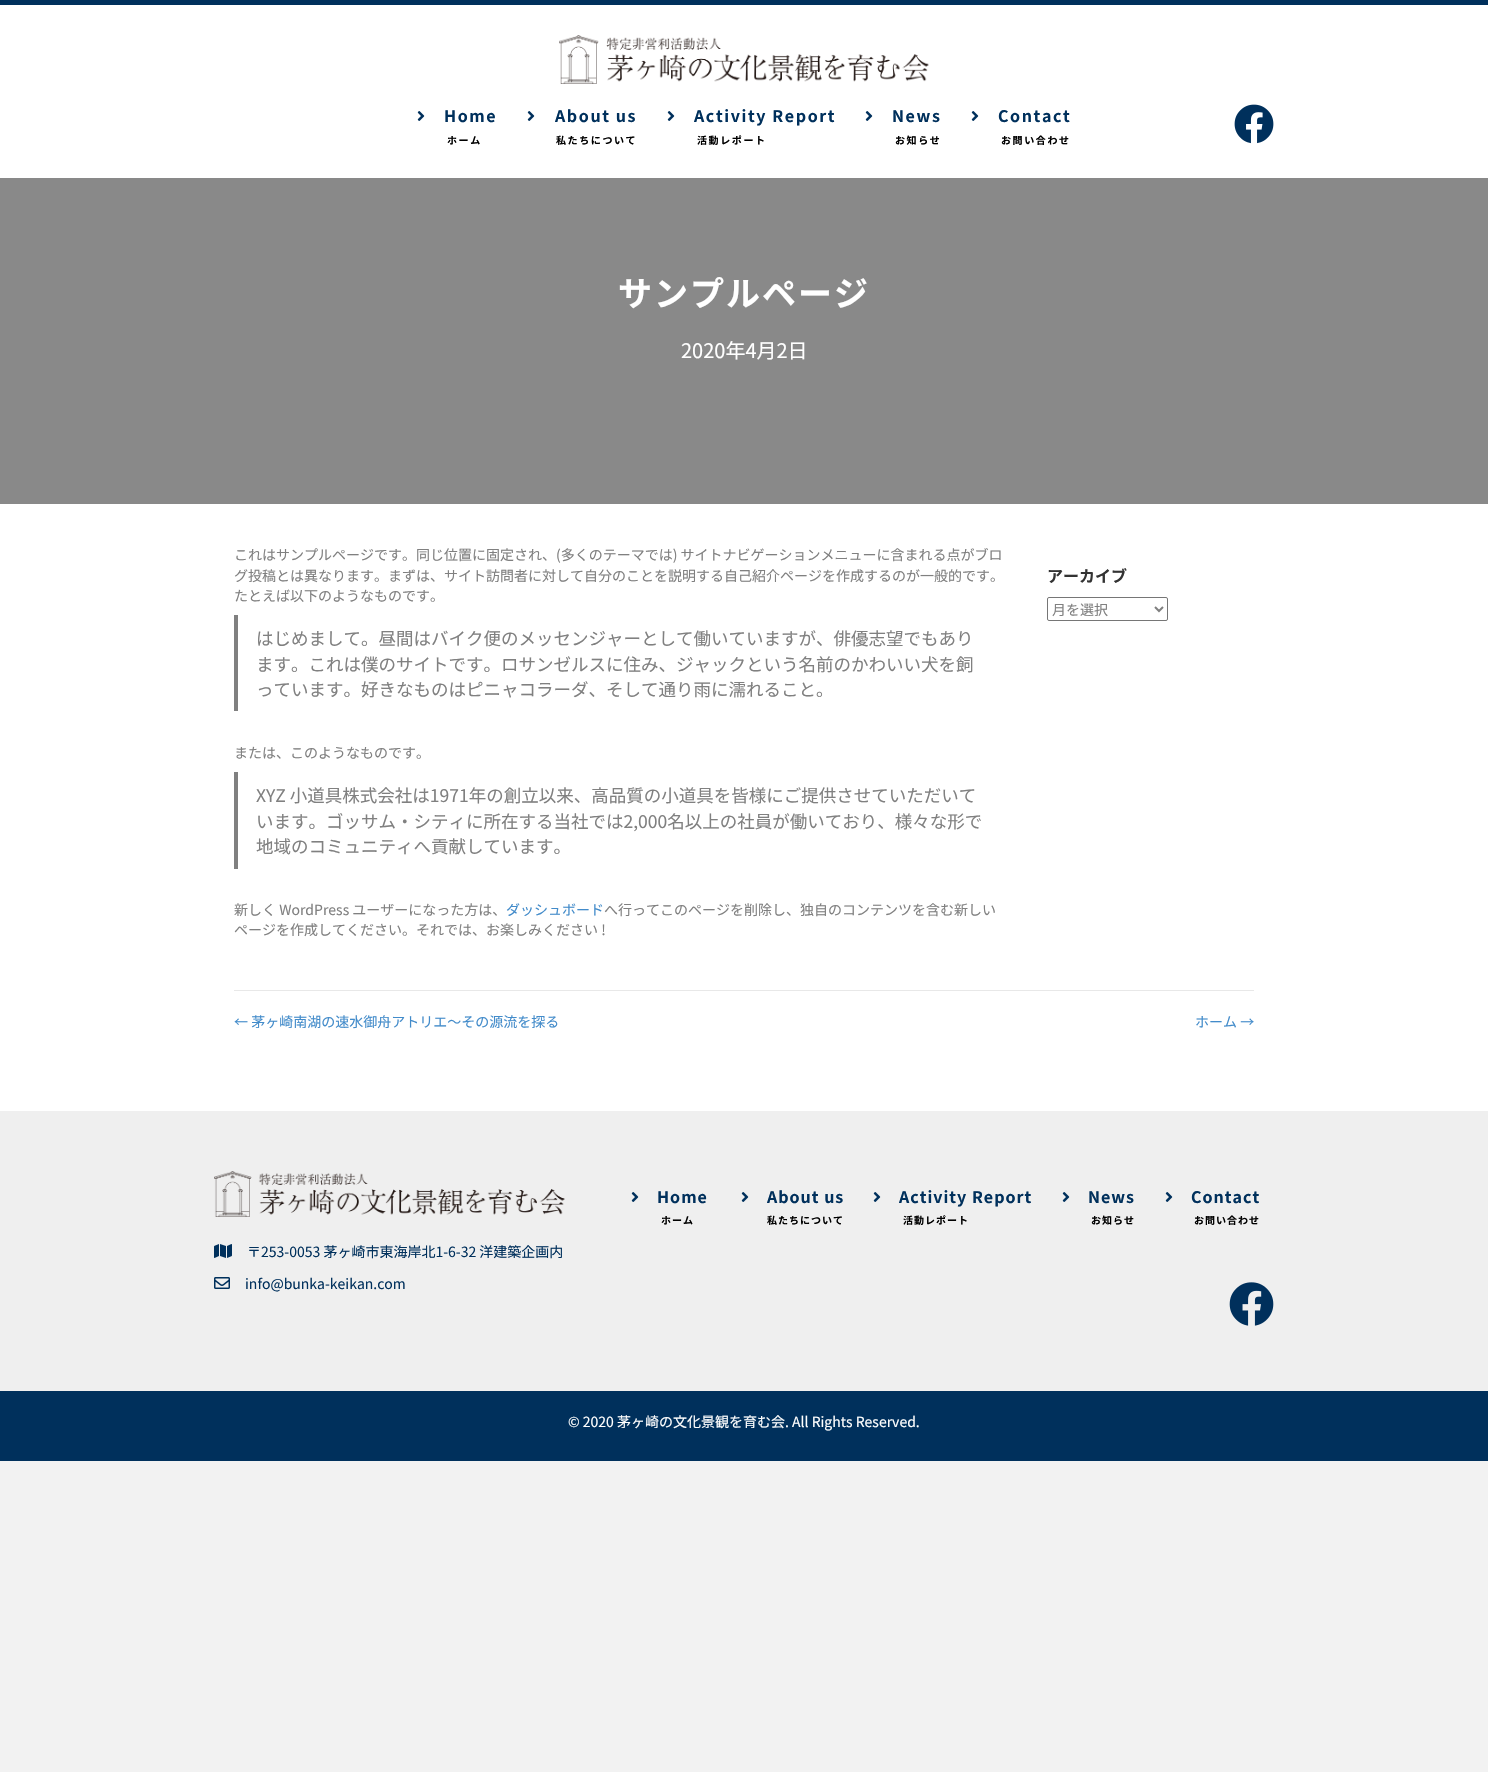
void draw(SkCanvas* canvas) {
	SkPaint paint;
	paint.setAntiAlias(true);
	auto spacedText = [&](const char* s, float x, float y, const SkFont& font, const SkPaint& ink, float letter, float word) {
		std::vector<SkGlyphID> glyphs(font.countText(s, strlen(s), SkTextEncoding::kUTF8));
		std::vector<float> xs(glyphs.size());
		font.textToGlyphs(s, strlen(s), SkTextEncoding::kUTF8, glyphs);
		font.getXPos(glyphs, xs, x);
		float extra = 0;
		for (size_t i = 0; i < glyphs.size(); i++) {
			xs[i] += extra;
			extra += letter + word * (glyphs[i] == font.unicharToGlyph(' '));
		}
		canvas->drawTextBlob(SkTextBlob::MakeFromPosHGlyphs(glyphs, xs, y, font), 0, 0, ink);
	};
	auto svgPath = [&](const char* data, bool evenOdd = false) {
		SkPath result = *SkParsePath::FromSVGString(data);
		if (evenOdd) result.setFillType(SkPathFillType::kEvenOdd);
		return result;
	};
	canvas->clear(0xfff2f2f2);
	paint.setColor(0xffffffff);
	canvas->drawRect(SkRect::MakeXYWH(0, 5, 1488, 173), paint);
	paint.setColor(0xff00305c);
	canvas->drawRect(SkRect::MakeXYWH(0, 0, 1488, 5), paint);
	canvas->drawImageRect(SkImages::DeferredFromEncodedData(SkData::MakeFromFileName("img1.png")), SkRect::MakeXYWH(559, 35, 370, 49), SkSamplingOptions());
	canvas->drawImageRect(SkImages::DeferredFromEncodedData(SkData::MakeFromFileName("img2.png")), SkRect::MakeXYWH(417, 111, 8, 10), SkSamplingOptions());
	SkFont f1(fontMgr->matchFamilyStyle("Noto Sans JP", SkFontStyle::Bold()), 16);
	f1.setSubpixel(true);
	spacedText("Home", 444, 122, f1, paint, 1.6, 0);
	SkFont f2(fontMgr->matchFamilyStyle("Noto Sans JP", SkFontStyle::Bold()), 10);
	f2.setSubpixel(true);
	paint.setColor(0xff000000);
	spacedText("ホーム", 447, 144, f2, paint, 1.6, 0);
	canvas->drawImageRect(SkImages::DeferredFromEncodedData(SkData::MakeFromFileName("img2.png")), SkRect::MakeXYWH(527, 111, 8, 10), SkSamplingOptions());
	paint.setColor(0xff00305c);
	spacedText("About us", 555, 122, f1, paint, 1.6, 0);
	paint.setColor(0xff000000);
	spacedText("私たちについて", 556, 144, f2, paint, 1.6, 0);
	canvas->drawImageRect(SkImages::DeferredFromEncodedData(SkData::MakeFromFileName("img2.png")), SkRect::MakeXYWH(667, 111, 8, 10), SkSamplingOptions());
	paint.setColor(0xff00305c);
	spacedText("Activity Report", 694, 122, f1, paint, 1.6, 0);
	paint.setColor(0xff000000);
	spacedText("活動レポート", 697, 144, f2, paint, 1.6, 0);
	canvas->drawImageRect(SkImages::DeferredFromEncodedData(SkData::MakeFromFileName("img2.png")), SkRect::MakeXYWH(865, 111, 8, 10), SkSamplingOptions());
	paint.setColor(0xff00305c);
	spacedText("News", 892, 122, f1, paint, 1.6, 0);
	paint.setColor(0xff000000);
	spacedText("お知らせ", 895, 144, f2, paint, 1.6, 0);
	canvas->drawImageRect(SkImages::DeferredFromEncodedData(SkData::MakeFromFileName("img2.png")), SkRect::MakeXYWH(971, 111, 8, 10), SkSamplingOptions());
	paint.setColor(0xff00305c);
	spacedText("Contact", 998, 122, f1, paint, 1.6, 0);
	paint.setColor(0xff000000);
	spacedText("お問い合わせ", 1001, 144, f2, paint, 1.6, 0);
	canvas->drawImageRect(SkImages::DeferredFromEncodedData(SkData::MakeFromFileName("img3.png")), SkRect::MakeXYWH(1234, 104, 40, 40), SkSamplingOptions());
	paint.setColor(0xffffffff);
	canvas->drawRect(SkRect::MakeXYWH(0, 504, 1488, 607), paint);
	paint.setColor(0xff898989);
	canvas->drawRect(SkRect::MakeXYWH(0, 178, 1488, 326), paint);
	SkFont f3(fontMgr->matchFamilyStyle("Noto Sans JP", SkFontStyle::Bold()), 34);
	f3.setSubpixel(true);
	paint.setColor(0xffffffff);
	spacedText("サンプルページ", 618, 306, f3, paint, 2, 0);
	SkFont f4(fontMgr->matchFamilyStyle("Noto Sans JP", SkFontStyle::Normal()), 20);
	f4.setSubpixel(true);
	canvas->drawString("2020年4月2日", 681, 358, f4, paint);
	SkFont f5(fontMgr->matchFamilyStyle("Noto Sans JP", SkFontStyle::Normal()), 14);
	f5.setSubpixel(true);
	paint.setColor(0xff808080);
	canvas->drawString("これはサンプルページです。同じ位置に固定され、(多くのテーマでは) サイトナビゲーションメニューに含まれる点がブロ", 234, 560, f5, paint);
	canvas->drawString("グ投稿とは異なります。まずは、サイト訪問者に対して自分のことを説明する自己紹介ページを作成するのが一般的です。", 234, 581, f5, paint);
	canvas->drawString("たとえば以下のようなものです。", 234, 601, f5, paint);
	canvas->drawRect(SkRect::MakeXYWH(234, 615, 4, 96), paint);
	SkFont f6(fontMgr->matchFamilyStyle("Noto Sans JP", SkFontStyle::Normal()), 17.5);
	f6.setSubpixel(true);
	canvas->drawString("はじめまして。昼間はバイク便のメッセンジャーとして働いていますが、俳優志望でもあり", 256, 645, f6, paint);
	canvas->drawString("ます。これは僕のサイトです。ロサンゼルスに住み、ジャックという名前のかわいい犬を飼", 256, 671, f6, paint);
	canvas->drawString("っています。好きなものはピニャコラーダ、そして通り雨に濡れること。", 256, 696, f6, paint);
	canvas->drawString("または、このようなものです。", 234, 758, f5, paint);
	canvas->drawRect(SkRect::MakeXYWH(234, 772, 4, 97), paint);
	canvas->drawString("XYZ 小道具株式会社は1971年の創立以来、高品質の小道具を皆様にご提供させていただいて", 256, 802, f6, paint);
	canvas->drawString("います。ゴッサム・シティに所在する当社では2,000名以上の社員が働いており、様々な形で", 256, 828, f6, paint);
	canvas->drawString("地域のコミュニティへ貢献しています。", 256, 853, f6, paint);
	canvas->drawString("新しく WordPress ユーザーになった方は、", 234, 915, f5, paint);
	paint.setColor(0xff428bca);
	canvas->drawString("ダッシュボード", 506, 915, f5, paint);
	paint.setColor(0xff808080);
	canvas->drawString("へ行ってこのページを削除し、独自のコンテンツを含む新しい", 604, 915, f5, paint);
	canvas->drawString("ページを作成してください。それでは、お楽しみください !", 234, 935, f5, paint);
	paint.setColor(0xff333333);
	canvas->drawString("アーカイブ", 1047, 582, f1, paint);
	paint.setStroke(true);
	paint.setStrokeWidth(1);
	paint.setColor(0xff767676);
	canvas->drawRoundRect(SkRect::MakeXYWH(1047.5, 597.5, 120, 23), 1.5, 1.5, paint);
	paint.setStrokeWidth(2);
	paint.setColor(0xff808080);
	canvas->drawPath(svgPath("M1155 607L1159 611L1163 607"), paint);
	paint.setStroke(false);
	canvas->drawString("月を選択", 1052, 615, f5, paint);
	paint.setColor(0xffe8e8e8);
	canvas->drawRect(SkRect::MakeXYWH(234, 990, 1020, 1), paint);
	paint.setColor(0xff428bca);
	canvas->drawString("← 茅ヶ崎南湖の速水御舟アトリエ～その源流を探る", 234, 1027, f5, paint);
	canvas->drawString("ホーム →", 1195, 1027, f5, paint);
	paint.setColor(0xffefefef);
	canvas->drawRect(SkRect::MakeXYWH(0, 1111, 1488, 280), paint);
	canvas->drawImageRect(SkImages::DeferredFromEncodedData(SkData::MakeFromFileName("img4.png")), SkRect::MakeXYWH(631, 1192, 8, 10), SkSamplingOptions());
	paint.setColor(0xff00305c);
	spacedText("Home", 657, 1203, f1, paint, 1, 0);
	paint.setColor(0xff000000);
	spacedText("ホーム", 661, 1224, f2, paint, 1, 0);
	canvas->drawImageRect(SkImages::DeferredFromEncodedData(SkData::MakeFromFileName("img4.png")), SkRect::MakeXYWH(741, 1192, 8, 10), SkSamplingOptions());
	paint.setColor(0xff00305c);
	spacedText("About us", 767, 1203, f1, paint, 1, 0);
	paint.setColor(0xff000000);
	spacedText("私たちについて", 767, 1224, f2, paint, 1, 0);
	canvas->drawImageRect(SkImages::DeferredFromEncodedData(SkData::MakeFromFileName("img4.png")), SkRect::MakeXYWH(873, 1192, 8, 10), SkSamplingOptions());
	paint.setColor(0xff00305c);
	spacedText("Activity Report", 899, 1203, f1, paint, 1, 0);
	paint.setColor(0xff000000);
	spacedText("活動レポート", 903, 1224, f2, paint, 1, 0);
	canvas->drawImageRect(SkImages::DeferredFromEncodedData(SkData::MakeFromFileName("img4.png")), SkRect::MakeXYWH(1062, 1192, 8, 10), SkSamplingOptions());
	paint.setColor(0xff00305c);
	spacedText("News", 1088, 1203, f1, paint, 1, 0);
	paint.setColor(0xff000000);
	spacedText("お知らせ", 1091, 1224, f2, paint, 1, 0);
	canvas->drawImageRect(SkImages::DeferredFromEncodedData(SkData::MakeFromFileName("img4.png")), SkRect::MakeXYWH(1165, 1192, 8, 10), SkSamplingOptions());
	paint.setColor(0xff00305c);
	spacedText("Contact", 1191, 1203, f1, paint, 1, 0);
	paint.setColor(0xff000000);
	spacedText("お問い合わせ", 1194, 1224, f2, paint, 1, 0);
	canvas->drawImageRect(SkImages::DeferredFromEncodedData(SkData::MakeFromFileName("img5.png")), SkRect::MakeXYWH(1229, 1282, 45, 44), SkSamplingOptions());
	canvas->drawImageRect(SkImages::DeferredFromEncodedData(SkData::MakeFromFileName("img6.png")), SkRect::MakeXYWH(214, 1171, 351, 46), SkSamplingOptions());
	canvas->drawImageRect(SkImages::DeferredFromEncodedData(SkData::MakeFromFileName("img7.png")), SkRect::MakeXYWH(214, 1244, 18, 14), SkSamplingOptions());
	paint.setColor(0xff00305c);
	canvas->drawString("〒253-0053 茅ヶ崎市東海岸北1-6-32 洋建築企画内", 247, 1257, f5, paint);
	canvas->drawImageRect(SkImages::DeferredFromEncodedData(SkData::MakeFromFileName("img8.png")), SkRect::MakeXYWH(214, 1277, 16, 12), SkSamplingOptions());
	canvas->drawString("info@bunka-keikan.com", 245, 1289, f5, paint);
	canvas->drawRect(SkRect::MakeXYWH(0, 1391, 1488, 70), paint);
	paint.setColor(0xffffffff);
	canvas->drawString("© 2020 茅ヶ崎の文化景観を育む会. All Rights Reserved.", 568, 1427, f5, paint);
}
